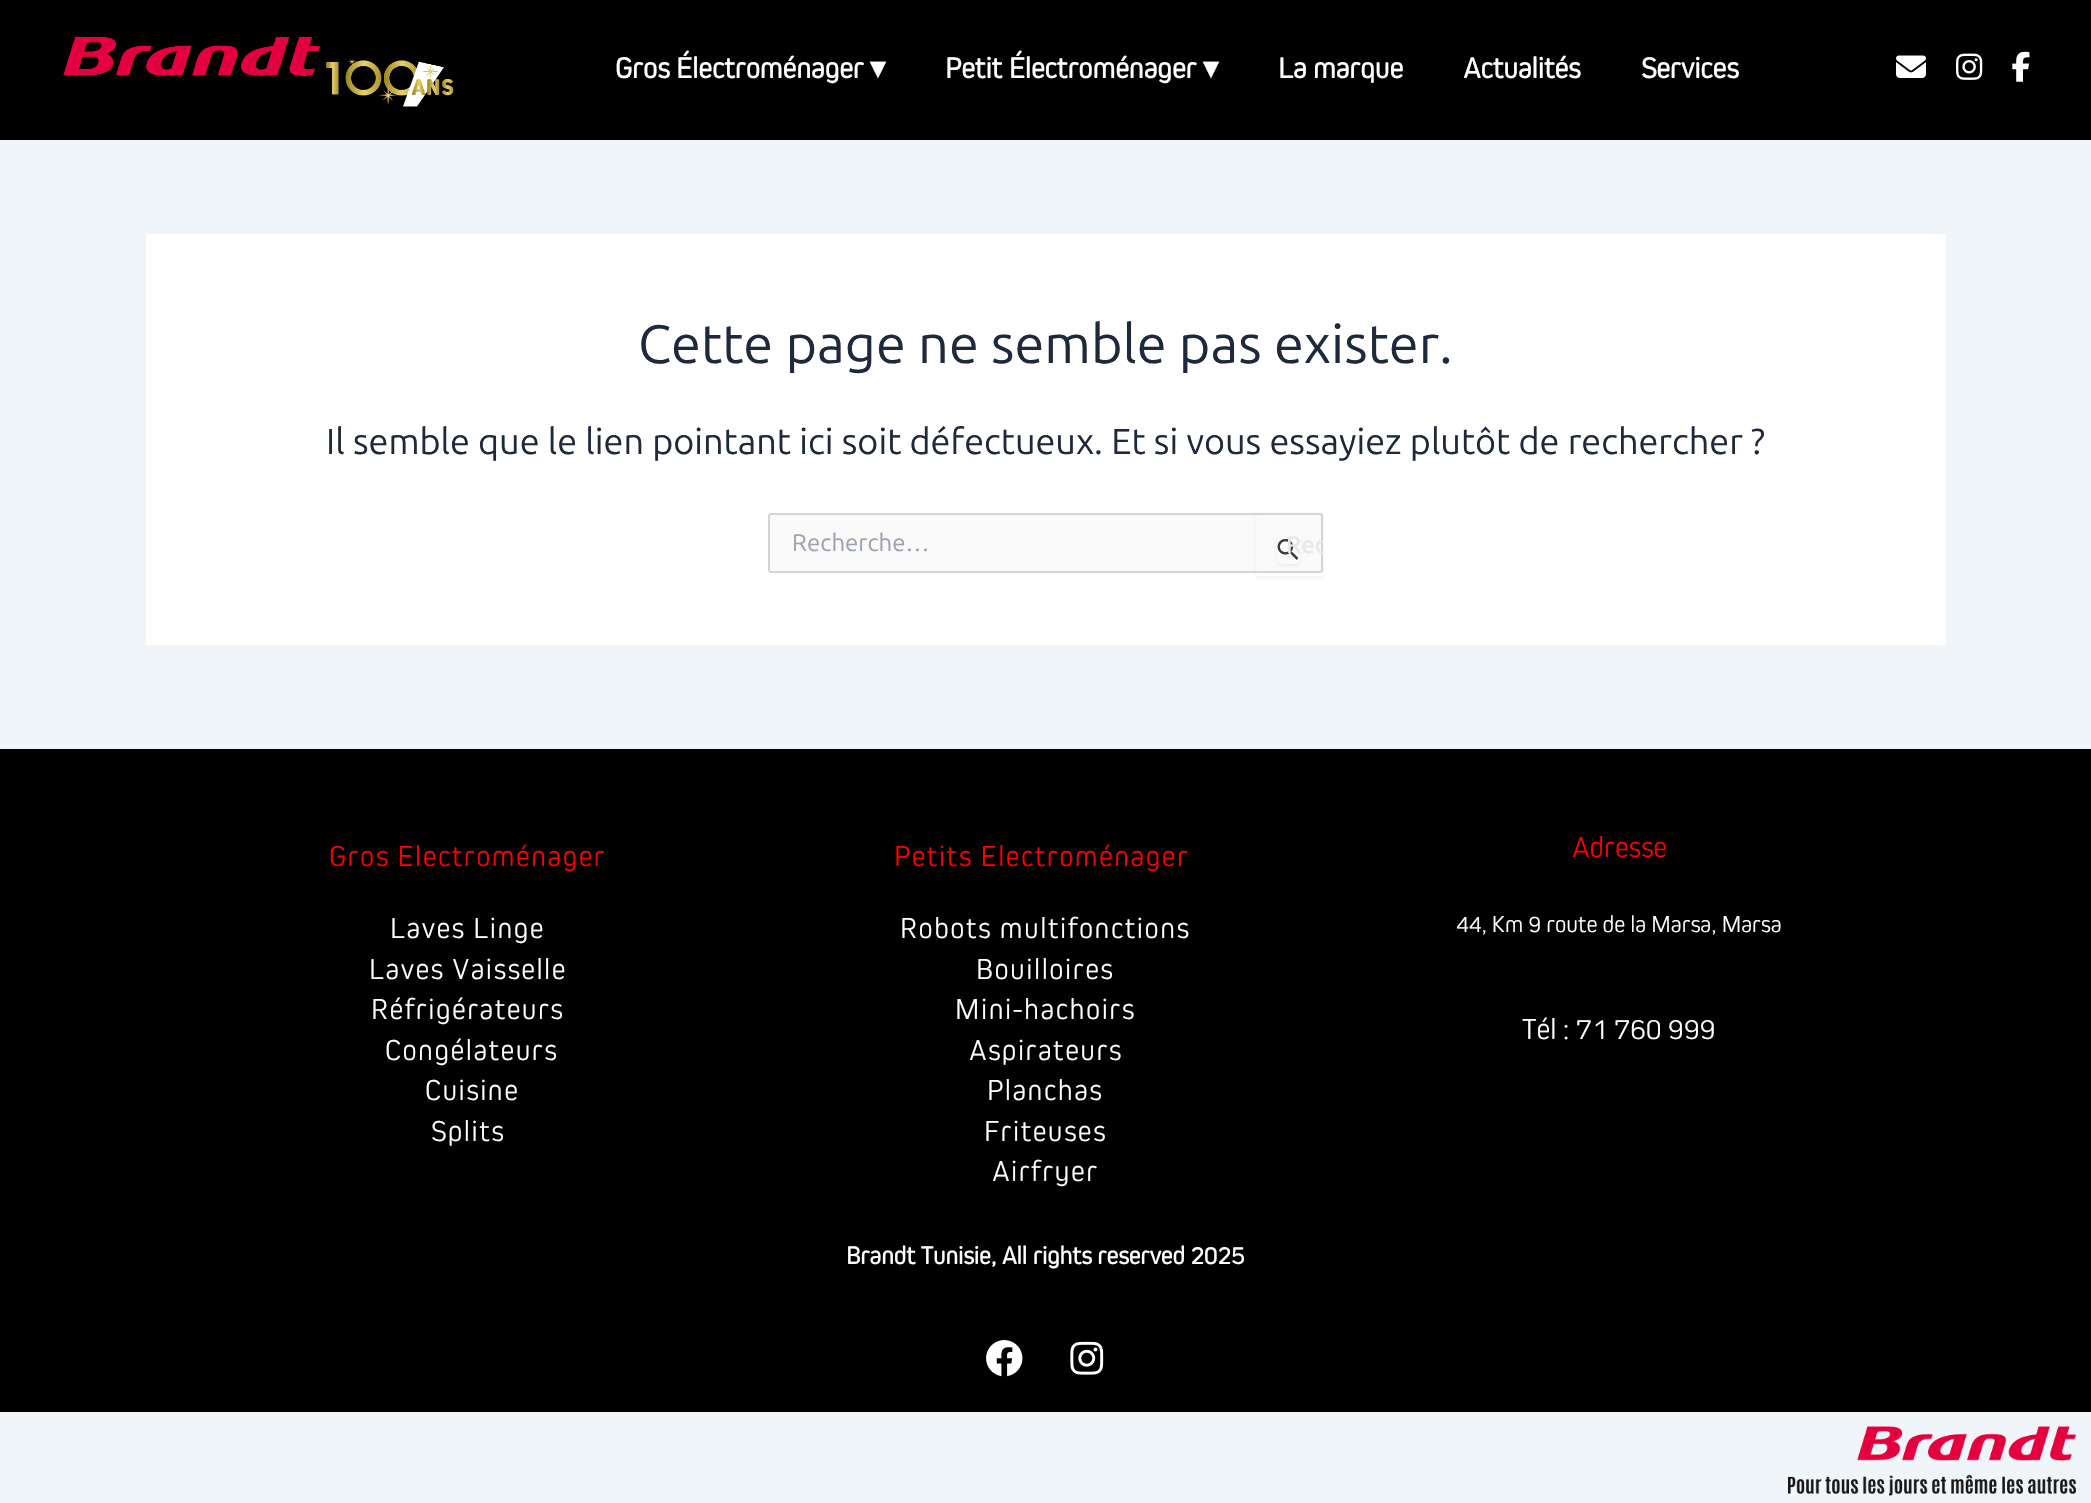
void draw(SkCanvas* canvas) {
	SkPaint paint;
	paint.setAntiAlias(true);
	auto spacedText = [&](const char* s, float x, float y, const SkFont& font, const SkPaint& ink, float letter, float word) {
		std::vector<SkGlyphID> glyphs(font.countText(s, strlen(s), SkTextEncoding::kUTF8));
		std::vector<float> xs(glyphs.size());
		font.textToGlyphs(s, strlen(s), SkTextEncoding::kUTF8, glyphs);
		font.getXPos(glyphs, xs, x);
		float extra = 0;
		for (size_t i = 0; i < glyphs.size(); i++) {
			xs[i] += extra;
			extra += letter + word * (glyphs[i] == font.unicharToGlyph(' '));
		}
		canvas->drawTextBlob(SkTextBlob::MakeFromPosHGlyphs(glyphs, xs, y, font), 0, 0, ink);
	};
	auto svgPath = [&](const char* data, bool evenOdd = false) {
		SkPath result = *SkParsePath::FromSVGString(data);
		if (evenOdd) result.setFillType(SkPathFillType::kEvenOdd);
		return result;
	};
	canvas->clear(0xfff0f5fa);
	paint.setColor(0xff000000);
	canvas->drawRect(SkRect::MakeXYWH(0, 0, 2091, 140), paint);
	canvas->drawImageRect(SkImages::DeferredFromEncodedData(SkData::MakeFromFileName("img1.png")), SkRect::MakeXYWH(63, 36, 391, 71), SkSamplingOptions());
	SkFont f1(fontMgr->matchFamilyStyle("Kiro", SkFontStyle::Bold()), 30);
	f1.setSubpixel(true);
	paint.setColor(0xffffffff);
	canvas->drawString("Gros Électroménager", 615, 78, f1, paint);
	SkFont f2(fontMgr->matchFamilyStyle("DejaVu Sans", SkFontStyle::Bold()), 30);
	f2.setSubpixel(true);
	canvas->drawString("▾", 870, 78, f2, paint);
	canvas->drawString("Petit Électroménager", 945, 78, f1, paint);
	canvas->drawString("▾", 1203, 78, f2, paint);
	canvas->drawString("La marque", 1278, 78, f1, paint);
	canvas->drawString("Actualités", 1463, 78, f1, paint);
	canvas->drawString("Services", 1641, 78, f1, paint);
	canvas->drawImageRect(SkImages::DeferredFromEncodedData(SkData::MakeFromFileName("img2.png")), SkRect::MakeXYWH(1896, 55, 30, 23), SkSamplingOptions());
	canvas->drawImageRect(SkImages::DeferredFromEncodedData(SkData::MakeFromFileName("img3.png")), SkRect::MakeXYWH(1956, 53, 27, 27), SkSamplingOptions());
	canvas->drawImageRect(SkImages::DeferredFromEncodedData(SkData::MakeFromFileName("img4.png")), SkRect::MakeXYWH(2012, 51, 18, 31), SkSamplingOptions());
	canvas->drawRect(SkRect::MakeXYWH(146, 234, 1800, 411), paint);
	SkFont f3(fontMgr->matchFamilyStyle("Ubuntu", SkFontStyle::Normal()), 54);
	f3.setSubpixel(true);
	paint.setColor(0xff1e293b);
	canvas->drawString("Cette page ne semble pas exister.", 638, 363, f3, paint);
	SkFont f4(fontMgr->matchFamilyStyle("Ubuntu", SkFontStyle::Normal()), 36);
	f4.setSubpixel(true);
	canvas->drawString("Il semble que le lien pointant ici soit défectueux. Et si vous essayiez plutôt de rechercher ?", 326, 454, f4, paint);
	paint.setColor(0xfffafafa);
	canvas->drawRoundRect(SkRect::MakeXYWH(769, 514, 553, 58), 2, 2, paint);
	paint.setStroke(true);
	paint.setStrokeWidth(2);
	paint.setColor(0xffd1d5db);
	canvas->drawRoundRect(SkRect::MakeXYWH(769, 514, 553, 58), 2, 2, paint);
	SkFont f5(fontMgr->matchFamilyStyle("Ubuntu", SkFontStyle::Normal()), 24);
	f5.setSubpixel(true);
	paint.setStroke(false);
	paint.setColor(0xff9ca3af);
	canvas->drawString("Recherche…", 792, 551, f5, paint);
	canvas->save();
	canvas->clipPath(svgPath("M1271 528H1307V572H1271ZM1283 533H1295C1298.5 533 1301 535.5 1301 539V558C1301 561.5 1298.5 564 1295 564H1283C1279.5 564 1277 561.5 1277 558V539C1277 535.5 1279.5 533 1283 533Z", true), true);
	paint.setColor(0x0d000000);
	paint.setMaskFilter(SkMaskFilter::MakeBlur(kNormal_SkBlurStyle, 1.5));
	canvas->drawRoundRect(SkRect::MakeXYWH(1277, 534, 24, 32), 6, 6, paint);
	paint.setMaskFilter(nullptr);
	canvas->restore();
	canvas->drawImageRect(SkImages::DeferredFromEncodedData(SkData::MakeFromFileName("img5.png")), SkRect::MakeXYWH(1277, 539, 21, 21), SkSamplingOptions());
	canvas->save();
	canvas->clipPath(svgPath("M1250 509H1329V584H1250ZM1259 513H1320C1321.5 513 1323 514.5 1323 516V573C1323 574.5 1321.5 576 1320 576H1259C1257.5 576 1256 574.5 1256 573V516C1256 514.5 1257.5 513 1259 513Z", true), true);
	paint.setMaskFilter(SkMaskFilter::MakeBlur(kNormal_SkBlurStyle, 1.5));
	canvas->drawRoundRect(SkRect::MakeXYWH(1256, 515, 67, 63), 3, 3, paint);
	paint.setMaskFilter(nullptr);
	canvas->restore();
	canvas->save();
	canvas->clipPath(svgPath("M1259 513H1320C1321.5 513 1323 514.5 1323 516V573C1323 574.5 1321.5 576 1320 576H1259C1257.5 576 1256 574.5 1256 573V516C1256 514.5 1257.5 513 1259 513Z"), true);
	SkFont f6(fontMgr->matchFamilyStyle("Ubuntu", SkFontStyle(500, SkFontStyle::kNormal_Width, SkFontStyle::kUpright_Slant)), 24);
	f6.setSubpixel(true);
	paint.setColor(0xffe7e8e8);
	canvas->drawString("Rec", 1286, 553, f6, paint);
	canvas->restore();
	paint.setColor(0xff000000);
	canvas->drawRect(SkRect::MakeXYWH(0, 749, 2091, 663), paint);
	SkFont f7(fontMgr->matchFamilyStyle("Kiro", SkFontStyle(300, SkFontStyle::kNormal_Width, SkFontStyle::kUpright_Slant)), 30);
	f7.setSubpixel(true);
	paint.setColor(0xffff0000);
	spacedText("Gros Electroménager", 329, 866, f7, paint, 1.5, 0);
	paint.setColor(0xffffffff);
	spacedText("Laves Linge", 390, 938, f7, paint, 1.5, 0);
	spacedText("Laves Vaisselle", 369, 979, f7, paint, 1.5, 0);
	spacedText("Réfrigérateurs", 371, 1019, f7, paint, 1.5, 0);
	spacedText("Congélateurs", 385, 1060, f7, paint, 1.5, 0);
	spacedText("Cuisine", 425, 1100, f7, paint, 1.5, 0);
	spacedText("Splits", 431, 1141, f7, paint, 1.5, 0);
	paint.setColor(0xffff0000);
	spacedText("Petits Electroménager", 894, 866, f7, paint, 1.5, 0);
	paint.setColor(0xffffffff);
	spacedText("Robots multifonctions", 900, 938, f7, paint, 1.5, 0);
	spacedText("Bouilloires", 976, 979, f7, paint, 1.5, 0);
	spacedText("Mini-hachoirs", 955, 1019, f7, paint, 1.5, 0);
	spacedText("Aspirateurs", 969, 1060, f7, paint, 1.5, 0);
	spacedText("Planchas", 987, 1100, f7, paint, 1.5, 0);
	spacedText("Friteuses", 984, 1141, f7, paint, 1.5, 0);
	spacedText("Airfryer", 992, 1181, f7, paint, 1.5, 0);
	paint.setColor(0xffff0000);
	canvas->drawString("Adresse", 1572, 857, f7, paint);
	SkFont f8(fontMgr->matchFamilyStyle("Kiro", SkFontStyle(300, SkFontStyle::kNormal_Width, SkFontStyle::kUpright_Slant)), 24);
	f8.setSubpixel(true);
	paint.setColor(0xffffffff);
	canvas->drawString("44, Km 9 route de la Marsa, Marsa", 1456, 932, f8, paint);
	canvas->drawString("Tél : 71 760 999", 1522, 1039, f7, paint);
	SkFont f9(fontMgr->matchFamilyStyle("Kiro", SkFontStyle::Bold()), 25.5);
	f9.setSubpixel(true);
	canvas->drawString("Brandt Tunisie, All rights reserved 2025", 846, 1264, f9, paint);
	canvas->drawImageRect(SkImages::DeferredFromEncodedData(SkData::MakeFromFileName("img6.png")), SkRect::MakeXYWH(986, 1340, 37, 37), SkSamplingOptions());
	canvas->drawImageRect(SkImages::DeferredFromEncodedData(SkData::MakeFromFileName("img7.png")), SkRect::MakeXYWH(1070, 1341, 34, 34), SkSamplingOptions());
	canvas->drawImageRect(SkImages::DeferredFromEncodedData(SkData::MakeFromFileName("img8.png")), SkRect::MakeXYWH(1788, 1426, 288, 70), SkSamplingOptions());
}
